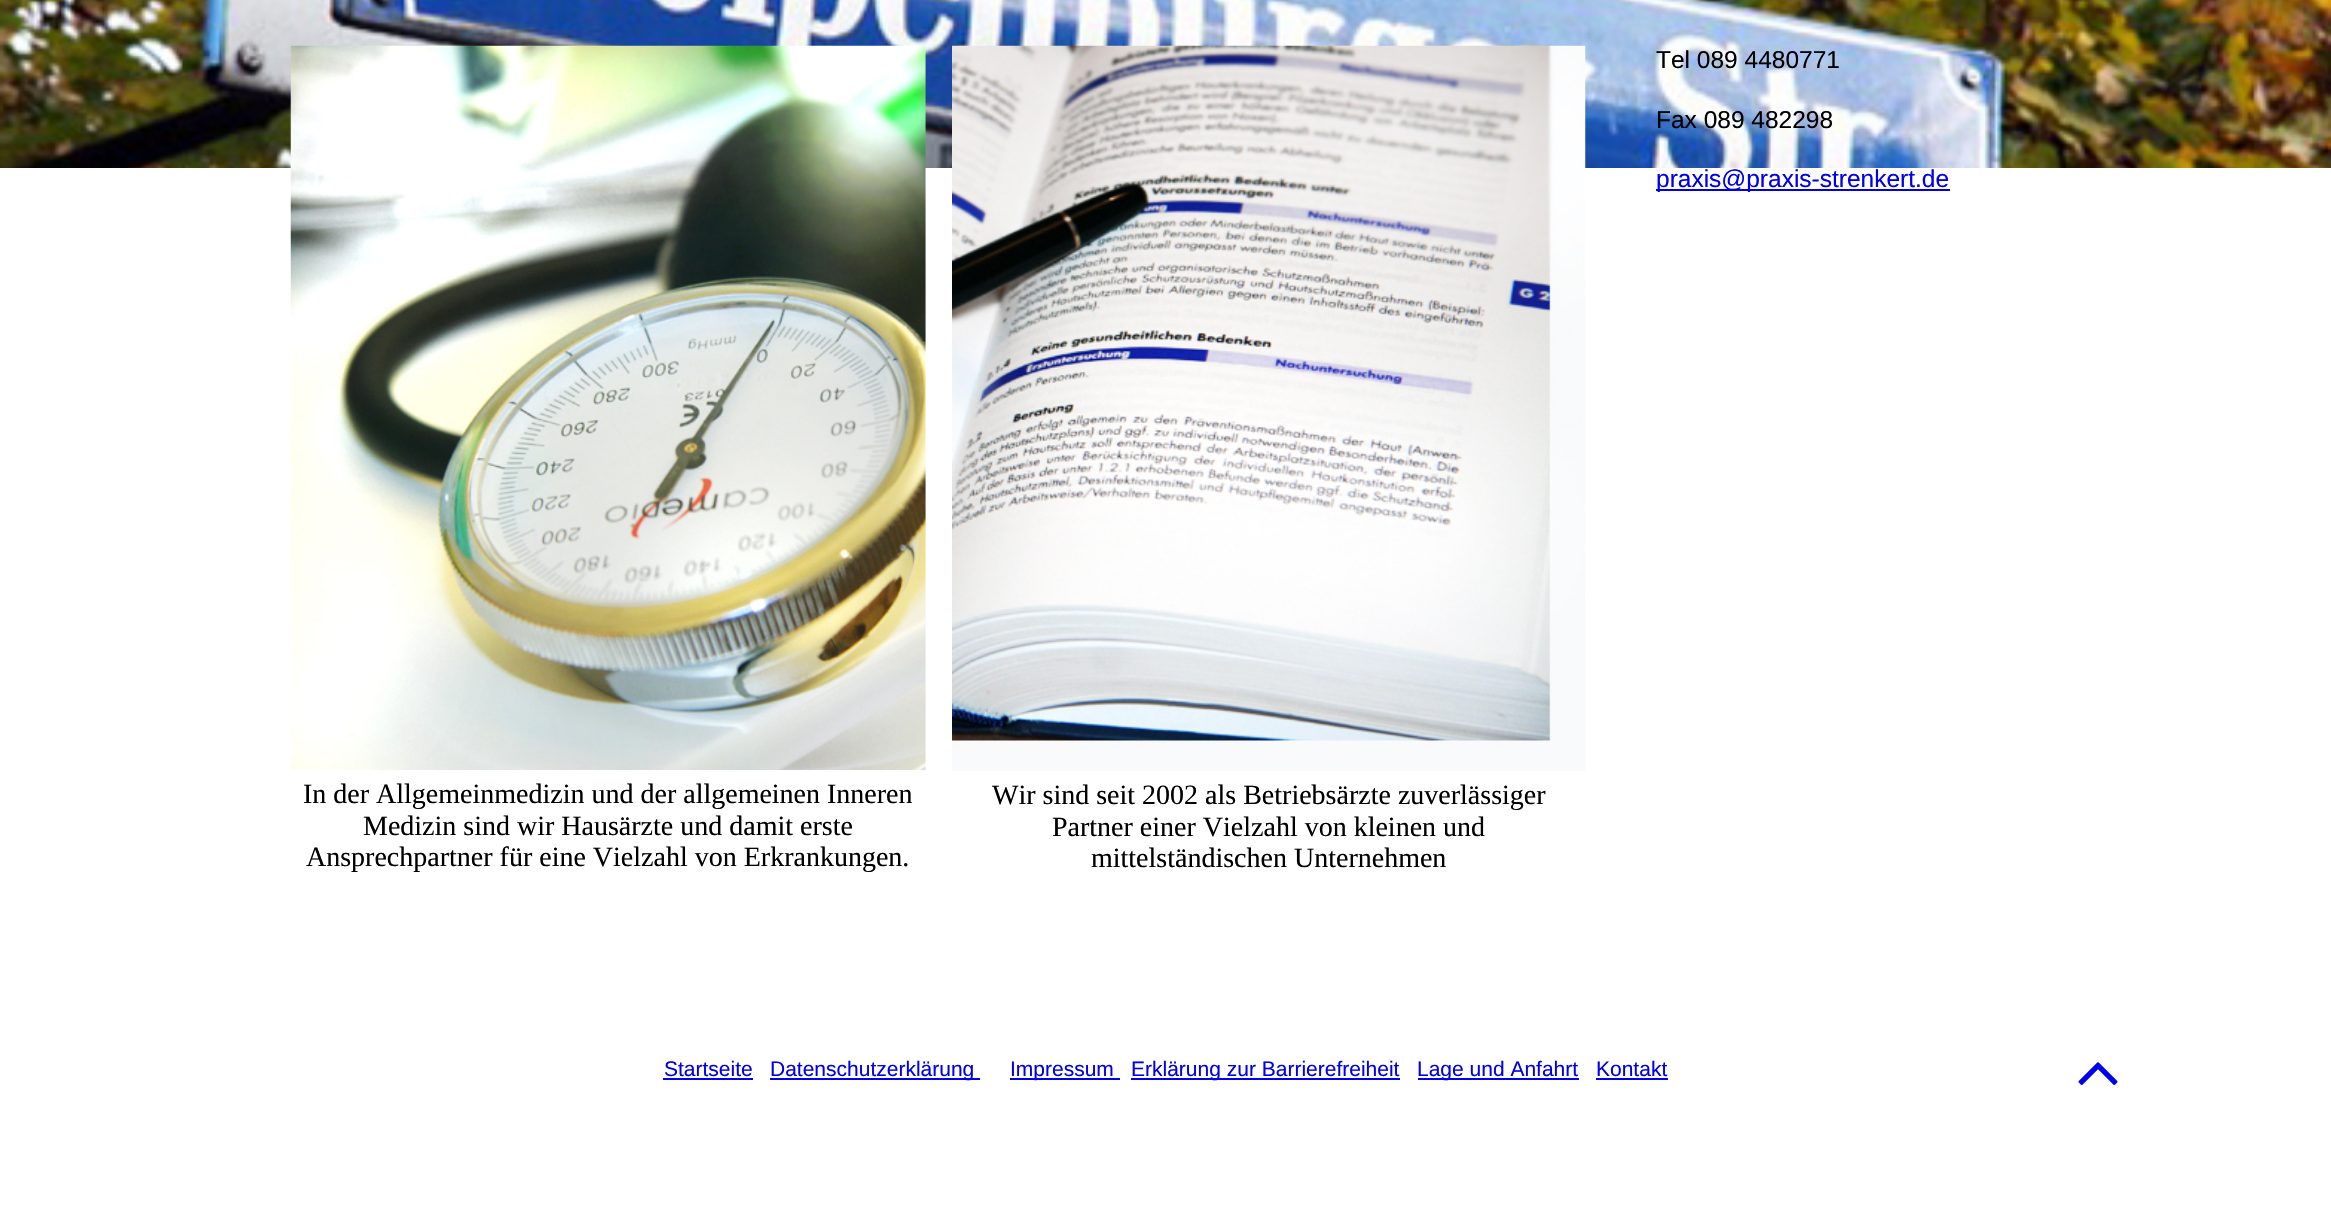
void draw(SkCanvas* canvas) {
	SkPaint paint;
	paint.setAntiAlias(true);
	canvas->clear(0xffffffff);
	canvas->drawImageRect(SkImages::DeferredFromEncodedData(SkData::MakeFromFileName("img1.png")), SkRect::MakeXYWH(0, 0, 2331, 168), SkSamplingOptions());
	SkFont f1(fontMgr->matchFamilyStyle("Liberation Sans", SkFontStyle::Normal()), 24.5);
	f1.setSubpixel(true);
	paint.setColor(0xff000000);
	canvas->drawString("Tel 089 4480771", 1656, 68, f1, paint);
	canvas->drawString("Fax 089 482298", 1656, 128, f1, paint);
	paint.setColor(0xff0000ee);
	canvas->drawRect(SkRect::MakeXYWH(1656, 189, 294, 2), paint);
	canvas->drawString("praxis@praxis-strenkert.de", 1656, 187, f1, paint);
	canvas->drawImageRect(SkImages::DeferredFromEncodedData(SkData::MakeFromFileName("img2.png")), SkRect::MakeXYWH(290, 45, 636, 725), SkSamplingOptions());
	SkFont f2(fontMgr->matchFamilyStyle("Liberation Serif", SkFontStyle::Normal()), 28);
	f2.setSubpixel(true);
	paint.setColor(0xff000000);
	canvas->drawString("In der Allgemeinmedizin und der allgemeinen Inneren", 303, 803, f2, paint);
	canvas->drawString("Medizin sind wir Hausärzte und damit erste", 363, 835, f2, paint);
	canvas->drawString("Ansprechpartner für eine Vielzahl von Erkrankungen.", 306, 866, f2, paint);
	canvas->drawImageRect(SkImages::DeferredFromEncodedData(SkData::MakeFromFileName("img3.png")), SkRect::MakeXYWH(952, 45, 634, 726), SkSamplingOptions());
	canvas->drawString("Wir sind seit 2002 als Betriebsärzte zuverlässiger", 992, 804, f2, paint);
	canvas->drawString("Partner einer Vielzahl von kleinen und", 1052, 836, f2, paint);
	canvas->drawString("mittelständischen Unternehmen", 1091, 867, f2, paint);
	SkFont f3(fontMgr->matchFamilyStyle("Liberation Sans", SkFontStyle::Normal()), 21);
	f3.setSubpixel(true);
	paint.setColor(0xff0000ee);
	canvas->drawString("Startseite", 664, 1076, f3, paint);
	canvas->drawRect(SkRect::MakeXYWH(663, 1078, 90, 2), paint);
	canvas->drawRect(SkRect::MakeXYWH(770, 1078, 210, 2), paint);
	canvas->drawString("Datenschutzerklärung", 770, 1076, f3, paint);
	canvas->drawRect(SkRect::MakeXYWH(1010, 1078, 110, 2), paint);
	canvas->drawString("Impressum", 1010, 1076, f3, paint);
	canvas->drawRect(SkRect::MakeXYWH(1131, 1078, 269, 2), paint);
	canvas->drawString("Erklärung zur Barrierefreiheit", 1131, 1076, f3, paint);
	canvas->drawRect(SkRect::MakeXYWH(1418, 1078, 161, 2), paint);
	canvas->drawString("Lage und Anfahrt", 1417, 1076, f3, paint);
	canvas->drawString("Kontakt", 1596, 1076, f3, paint);
	canvas->drawRect(SkRect::MakeXYWH(1596, 1078, 72, 2), paint);
	canvas->drawImageRect(SkImages::DeferredFromEncodedData(SkData::MakeFromFileName("img4.png")), SkRect::MakeXYWH(2078, 1062, 40, 23), SkSamplingOptions());
}
